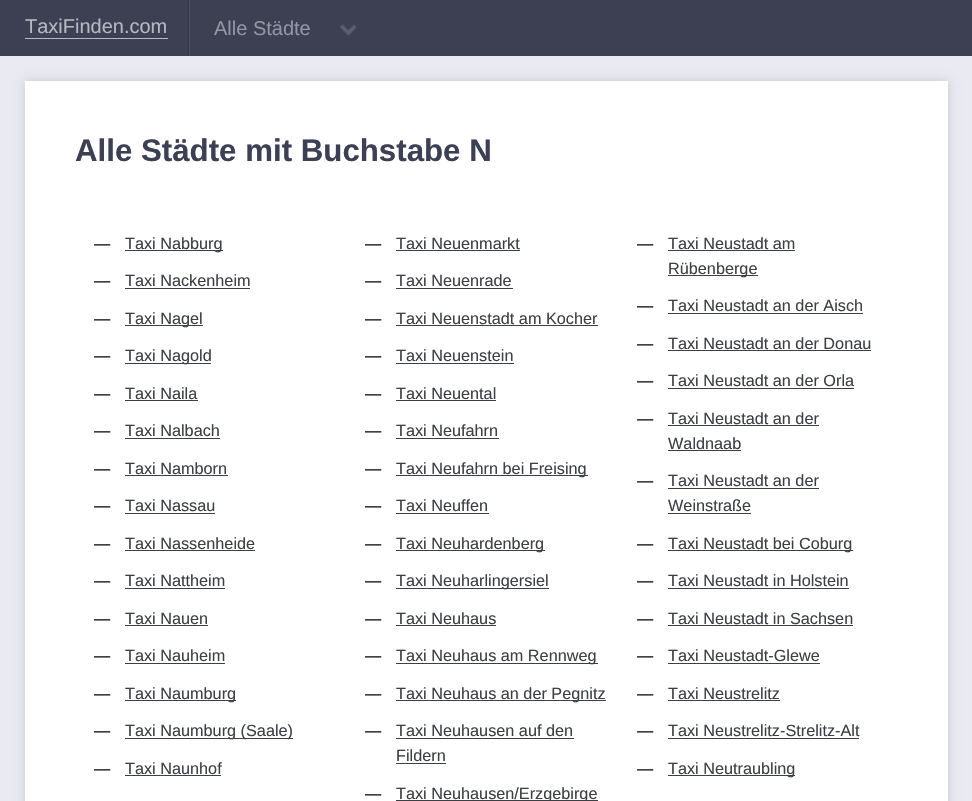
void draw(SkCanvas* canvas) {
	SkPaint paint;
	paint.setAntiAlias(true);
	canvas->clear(0xffeaebf2);
	paint.setColor(0xff3d3f52);
	canvas->drawRect(SkRect::MakeXYWH(0, 0, 972, 56), paint);
	paint.setColor(0xffb6b7c2);
	canvas->drawRect(SkRect::MakeXYWH(25, 38, 143, 1), paint);
	SkFont f1(fontMgr->matchFamilyStyle("Liberation Sans", SkFontStyle::Normal()), 20);
	f1.setSubpixel(true);
	canvas->drawString("TaxiFinden.com", 25, 33, f1, paint);
	paint.setColor(0xff4d4e60);
	canvas->drawRect(SkRect::MakeXYWH(189, 0, 1, 56), paint);
	paint.setColor(0xff343646);
	canvas->drawRect(SkRect::MakeXYWH(188, 0, 1, 56), paint);
	paint.setColor(0xff9495a2);
	canvas->drawString("Alle Städte", 214, 35, f1, paint);
	canvas->drawImageRect(SkImages::DeferredFromEncodedData(SkData::MakeFromFileName("img1.png")), SkRect::MakeXYWH(340, 24, 17, 12), SkSamplingOptions());
	paint.setColor(0x26000000);
	paint.setMaskFilter(SkMaskFilter::MakeBlur(kNormal_SkBlurStyle, 5));
	canvas->drawRect(SkRect::MakeXYWH(25, 81, 923, 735), paint);
	paint.setMaskFilter(nullptr);
	paint.setColor(0xffffffff);
	canvas->drawRect(SkRect::MakeXYWH(25, 81, 923, 720), paint);
	SkFont f2(fontMgr->matchFamilyStyle("Liberation Sans", SkFontStyle::Bold()), 31.25);
	f2.setSubpixel(true);
	paint.setColor(0xff3d3f55);
	canvas->drawString("Alle Städte mit Buchstabe N", 75, 161, f2, paint);
	SkFont f3(fontMgr->matchFamilyStyle("Liberation Sans", SkFontStyle::Normal()), 16.25);
	f3.setSubpixel(true);
	paint.setColor(0xff000000);
	canvas->drawString("—", 94, 249, f3, paint);
	paint.setColor(0xff3d3f45);
	canvas->drawRect(SkRect::MakeXYWH(125, 250, 98, 1), paint);
	canvas->drawString("Taxi Nabburg", 125, 249, f3, paint);
	paint.setColor(0xff000000);
	canvas->drawString("—", 94, 286, f3, paint);
	paint.setColor(0xff3d3f45);
	canvas->drawString("Taxi Nackenheim", 125, 286, f3, paint);
	canvas->drawRect(SkRect::MakeXYWH(125, 288, 125, 1), paint);
	paint.setColor(0xff000000);
	canvas->drawString("—", 94, 324, f3, paint);
	paint.setColor(0xff3d3f45);
	canvas->drawRect(SkRect::MakeXYWH(125, 325, 78, 1), paint);
	canvas->drawString("Taxi Nagel", 125, 324, f3, paint);
	paint.setColor(0xff000000);
	canvas->drawString("—", 94, 361, f3, paint);
	paint.setColor(0xff3d3f45);
	canvas->drawRect(SkRect::MakeXYWH(125, 363, 86, 1), paint);
	canvas->drawString("Taxi Nagold", 125, 361, f3, paint);
	paint.setColor(0xff000000);
	canvas->drawString("—", 94, 399, f3, paint);
	paint.setColor(0xff3d3f45);
	canvas->drawString("Taxi Naila", 125, 399, f3, paint);
	canvas->drawRect(SkRect::MakeXYWH(125, 400, 73, 1), paint);
	paint.setColor(0xff000000);
	canvas->drawString("—", 94, 436, f3, paint);
	paint.setColor(0xff3d3f45);
	canvas->drawString("Taxi Nalbach", 125, 436, f3, paint);
	canvas->drawRect(SkRect::MakeXYWH(125, 438, 95, 1), paint);
	paint.setColor(0xff000000);
	canvas->drawString("—", 94, 474, f3, paint);
	paint.setColor(0xff3d3f45);
	canvas->drawString("Taxi Namborn", 125, 474, f3, paint);
	canvas->drawRect(SkRect::MakeXYWH(125, 475, 103, 1), paint);
	paint.setColor(0xff000000);
	canvas->drawString("—", 94, 511, f3, paint);
	paint.setColor(0xff3d3f45);
	canvas->drawString("Taxi Nassau", 125, 511, f3, paint);
	canvas->drawRect(SkRect::MakeXYWH(125, 513, 90, 1), paint);
	paint.setColor(0xff000000);
	canvas->drawString("—", 94, 549, f3, paint);
	paint.setColor(0xff3d3f45);
	canvas->drawString("Taxi Nassenheide", 125, 549, f3, paint);
	canvas->drawRect(SkRect::MakeXYWH(125, 550, 130, 1), paint);
	paint.setColor(0xff000000);
	canvas->drawString("—", 94, 586, f3, paint);
	paint.setColor(0xff3d3f45);
	canvas->drawString("Taxi Nattheim", 125, 586, f3, paint);
	canvas->drawRect(SkRect::MakeXYWH(125, 588, 100, 1), paint);
	paint.setColor(0xff000000);
	canvas->drawString("—", 94, 624, f3, paint);
	paint.setColor(0xff3d3f45);
	canvas->drawString("Taxi Nauen", 125, 624, f3, paint);
	canvas->drawRect(SkRect::MakeXYWH(125, 625, 83, 1), paint);
	paint.setColor(0xff000000);
	canvas->drawString("—", 94, 661, f3, paint);
	paint.setColor(0xff3d3f45);
	canvas->drawString("Taxi Nauheim", 125, 661, f3, paint);
	canvas->drawRect(SkRect::MakeXYWH(125, 663, 100, 1), paint);
	paint.setColor(0xff000000);
	canvas->drawString("—", 94, 699, f3, paint);
	paint.setColor(0xff3d3f45);
	canvas->drawRect(SkRect::MakeXYWH(125, 700, 111, 1), paint);
	canvas->drawString("Taxi Naumburg", 125, 699, f3, paint);
	paint.setColor(0xff000000);
	canvas->drawString("—", 94, 736, f3, paint);
	paint.setColor(0xff3d3f45);
	canvas->drawRect(SkRect::MakeXYWH(125, 738, 168, 1), paint);
	canvas->drawString("Taxi Naumburg (Saale)", 125, 736, f3, paint);
	paint.setColor(0xff000000);
	canvas->drawString("—", 94, 774, f3, paint);
	paint.setColor(0xff3d3f45);
	canvas->drawString("Taxi Naunhof", 125, 774, f3, paint);
	canvas->drawRect(SkRect::MakeXYWH(125, 775, 96, 1), paint);
	paint.setColor(0xff000000);
	canvas->drawString("—", 365, 249, f3, paint);
	paint.setColor(0xff3d3f45);
	canvas->drawString("Taxi Neuenmarkt", 396, 249, f3, paint);
	canvas->drawRect(SkRect::MakeXYWH(396, 250, 124, 1), paint);
	paint.setColor(0xff000000);
	canvas->drawString("—", 365, 286, f3, paint);
	paint.setColor(0xff3d3f45);
	canvas->drawString("Taxi Neuenrade", 396, 286, f3, paint);
	canvas->drawRect(SkRect::MakeXYWH(396, 288, 117, 1), paint);
	paint.setColor(0xff000000);
	canvas->drawString("—", 365, 324, f3, paint);
	paint.setColor(0xff3d3f45);
	canvas->drawString("Taxi Neuenstadt am Kocher", 396, 324, f3, paint);
	canvas->drawRect(SkRect::MakeXYWH(396, 325, 202, 1), paint);
	paint.setColor(0xff000000);
	canvas->drawString("—", 365, 361, f3, paint);
	paint.setColor(0xff3d3f45);
	canvas->drawString("Taxi Neuenstein", 396, 361, f3, paint);
	canvas->drawRect(SkRect::MakeXYWH(396, 363, 118, 1), paint);
	paint.setColor(0xff000000);
	canvas->drawString("—", 365, 399, f3, paint);
	paint.setColor(0xff3d3f45);
	canvas->drawString("Taxi Neuental", 396, 399, f3, paint);
	canvas->drawRect(SkRect::MakeXYWH(396, 400, 100, 1), paint);
	paint.setColor(0xff000000);
	canvas->drawString("—", 365, 436, f3, paint);
	paint.setColor(0xff3d3f45);
	canvas->drawString("Taxi Neufahrn", 396, 436, f3, paint);
	canvas->drawRect(SkRect::MakeXYWH(396, 438, 103, 1), paint);
	paint.setColor(0xff000000);
	canvas->drawString("—", 365, 474, f3, paint);
	paint.setColor(0xff3d3f45);
	canvas->drawRect(SkRect::MakeXYWH(396, 475, 192, 1), paint);
	canvas->drawString("Taxi Neufahrn bei Freising", 396, 474, f3, paint);
	paint.setColor(0xff000000);
	canvas->drawString("—", 365, 511, f3, paint);
	paint.setColor(0xff3d3f45);
	canvas->drawString("Taxi Neuffen", 396, 511, f3, paint);
	canvas->drawRect(SkRect::MakeXYWH(396, 513, 93, 1), paint);
	paint.setColor(0xff000000);
	canvas->drawString("—", 365, 549, f3, paint);
	paint.setColor(0xff3d3f45);
	canvas->drawRect(SkRect::MakeXYWH(396, 550, 149, 1), paint);
	canvas->drawString("Taxi Neuhardenberg", 396, 549, f3, paint);
	paint.setColor(0xff000000);
	canvas->drawString("—", 365, 586, f3, paint);
	paint.setColor(0xff3d3f45);
	canvas->drawRect(SkRect::MakeXYWH(396, 588, 153, 1), paint);
	canvas->drawString("Taxi Neuharlingersiel", 396, 586, f3, paint);
	paint.setColor(0xff000000);
	canvas->drawString("—", 365, 624, f3, paint);
	paint.setColor(0xff3d3f45);
	canvas->drawString("Taxi Neuhaus", 396, 624, f3, paint);
	canvas->drawRect(SkRect::MakeXYWH(396, 625, 100, 1), paint);
	paint.setColor(0xff000000);
	canvas->drawString("—", 365, 661, f3, paint);
	paint.setColor(0xff3d3f45);
	canvas->drawRect(SkRect::MakeXYWH(396, 663, 202, 1), paint);
	canvas->drawString("Taxi Neuhaus am Rennweg", 396, 661, f3, paint);
	paint.setColor(0xff000000);
	canvas->drawString("—", 365, 699, f3, paint);
	paint.setColor(0xff3d3f45);
	canvas->drawRect(SkRect::MakeXYWH(396, 700, 210, 1), paint);
	canvas->drawString("Taxi Neuhaus an der Pegnitz", 396, 699, f3, paint);
	paint.setColor(0xff000000);
	canvas->drawString("—", 365, 736, f3, paint);
	paint.setColor(0xff3d3f45);
	canvas->drawString("Taxi Neuhausen auf den", 396, 736, f3, paint);
	canvas->drawRect(SkRect::MakeXYWH(396, 738, 178, 1), paint);
	canvas->drawString("Fildern", 396, 761, f3, paint);
	canvas->drawRect(SkRect::MakeXYWH(396, 763, 50, 1), paint);
	paint.setColor(0xff000000);
	canvas->drawString("—", 365, 799, f3, paint);
	paint.setColor(0xff3d3f45);
	canvas->drawRect(SkRect::MakeXYWH(396, 800, 202, 1), paint);
	canvas->drawString("Taxi Neuhausen/Erzgebirge", 396, 799, f3, paint);
	paint.setColor(0xff000000);
	canvas->drawString("—", 637, 249, f3, paint);
	paint.setColor(0xff3d3f45);
	canvas->drawString("Taxi Neustadt am", 668, 249, f3, paint);
	canvas->drawRect(SkRect::MakeXYWH(668, 250, 127, 1), paint);
	canvas->drawRect(SkRect::MakeXYWH(668, 275, 90, 1), paint);
	canvas->drawString("Rübenberge", 668, 274, f3, paint);
	paint.setColor(0xff000000);
	canvas->drawString("—", 637, 311, f3, paint);
	paint.setColor(0xff3d3f45);
	canvas->drawString("Taxi Neustadt an der Aisch", 668, 311, f3, paint);
	canvas->drawRect(SkRect::MakeXYWH(668, 313, 195, 1), paint);
	paint.setColor(0xff000000);
	canvas->drawString("—", 637, 349, f3, paint);
	paint.setColor(0xff3d3f45);
	canvas->drawString("Taxi Neustadt an der Donau", 668, 349, f3, paint);
	canvas->drawRect(SkRect::MakeXYWH(668, 350, 203, 1), paint);
	paint.setColor(0xff000000);
	canvas->drawString("—", 637, 386, f3, paint);
	paint.setColor(0xff3d3f45);
	canvas->drawString("Taxi Neustadt an der Orla", 668, 386, f3, paint);
	canvas->drawRect(SkRect::MakeXYWH(668, 388, 186, 1), paint);
	paint.setColor(0xff000000);
	canvas->drawString("—", 637, 424, f3, paint);
	paint.setColor(0xff3d3f45);
	canvas->drawString("Taxi Neustadt an der", 668, 424, f3, paint);
	canvas->drawRect(SkRect::MakeXYWH(668, 425, 151, 1), paint);
	canvas->drawString("Waldnaab", 668, 449, f3, paint);
	canvas->drawRect(SkRect::MakeXYWH(668, 450, 73, 1), paint);
	paint.setColor(0xff000000);
	canvas->drawString("—", 637, 486, f3, paint);
	paint.setColor(0xff3d3f45);
	canvas->drawString("Taxi Neustadt an der", 668, 486, f3, paint);
	canvas->drawRect(SkRect::MakeXYWH(668, 488, 151, 1), paint);
	canvas->drawString("Weinstraße", 668, 511, f3, paint);
	canvas->drawRect(SkRect::MakeXYWH(668, 513, 83, 1), paint);
	paint.setColor(0xff000000);
	canvas->drawString("—", 637, 549, f3, paint);
	paint.setColor(0xff3d3f45);
	canvas->drawRect(SkRect::MakeXYWH(668, 550, 185, 1), paint);
	canvas->drawString("Taxi Neustadt bei Coburg", 668, 549, f3, paint);
	paint.setColor(0xff000000);
	canvas->drawString("—", 637, 586, f3, paint);
	paint.setColor(0xff3d3f45);
	canvas->drawString("Taxi Neustadt in Holstein", 668, 586, f3, paint);
	canvas->drawRect(SkRect::MakeXYWH(668, 588, 181, 1), paint);
	paint.setColor(0xff000000);
	canvas->drawString("—", 637, 624, f3, paint);
	paint.setColor(0xff3d3f45);
	canvas->drawString("Taxi Neustadt in Sachsen", 668, 624, f3, paint);
	canvas->drawRect(SkRect::MakeXYWH(668, 625, 185, 1), paint);
	paint.setColor(0xff000000);
	canvas->drawString("—", 637, 661, f3, paint);
	paint.setColor(0xff3d3f45);
	canvas->drawString("Taxi Neustadt-Glewe", 668, 661, f3, paint);
	canvas->drawRect(SkRect::MakeXYWH(668, 663, 152, 1), paint);
	paint.setColor(0xff000000);
	canvas->drawString("—", 637, 699, f3, paint);
	paint.setColor(0xff3d3f45);
	canvas->drawString("Taxi Neustrelitz", 668, 699, f3, paint);
	canvas->drawRect(SkRect::MakeXYWH(668, 700, 112, 1), paint);
	paint.setColor(0xff000000);
	canvas->drawString("—", 637, 736, f3, paint);
	paint.setColor(0xff3d3f45);
	canvas->drawString("Taxi Neustrelitz-Strelitz-Alt", 668, 736, f3, paint);
	canvas->drawRect(SkRect::MakeXYWH(668, 738, 191, 1), paint);
	paint.setColor(0xff000000);
	canvas->drawString("—", 637, 774, f3, paint);
	paint.setColor(0xff3d3f45);
	canvas->drawRect(SkRect::MakeXYWH(668, 775, 127, 1), paint);
	canvas->drawString("Taxi Neutraubling", 668, 774, f3, paint);
}
